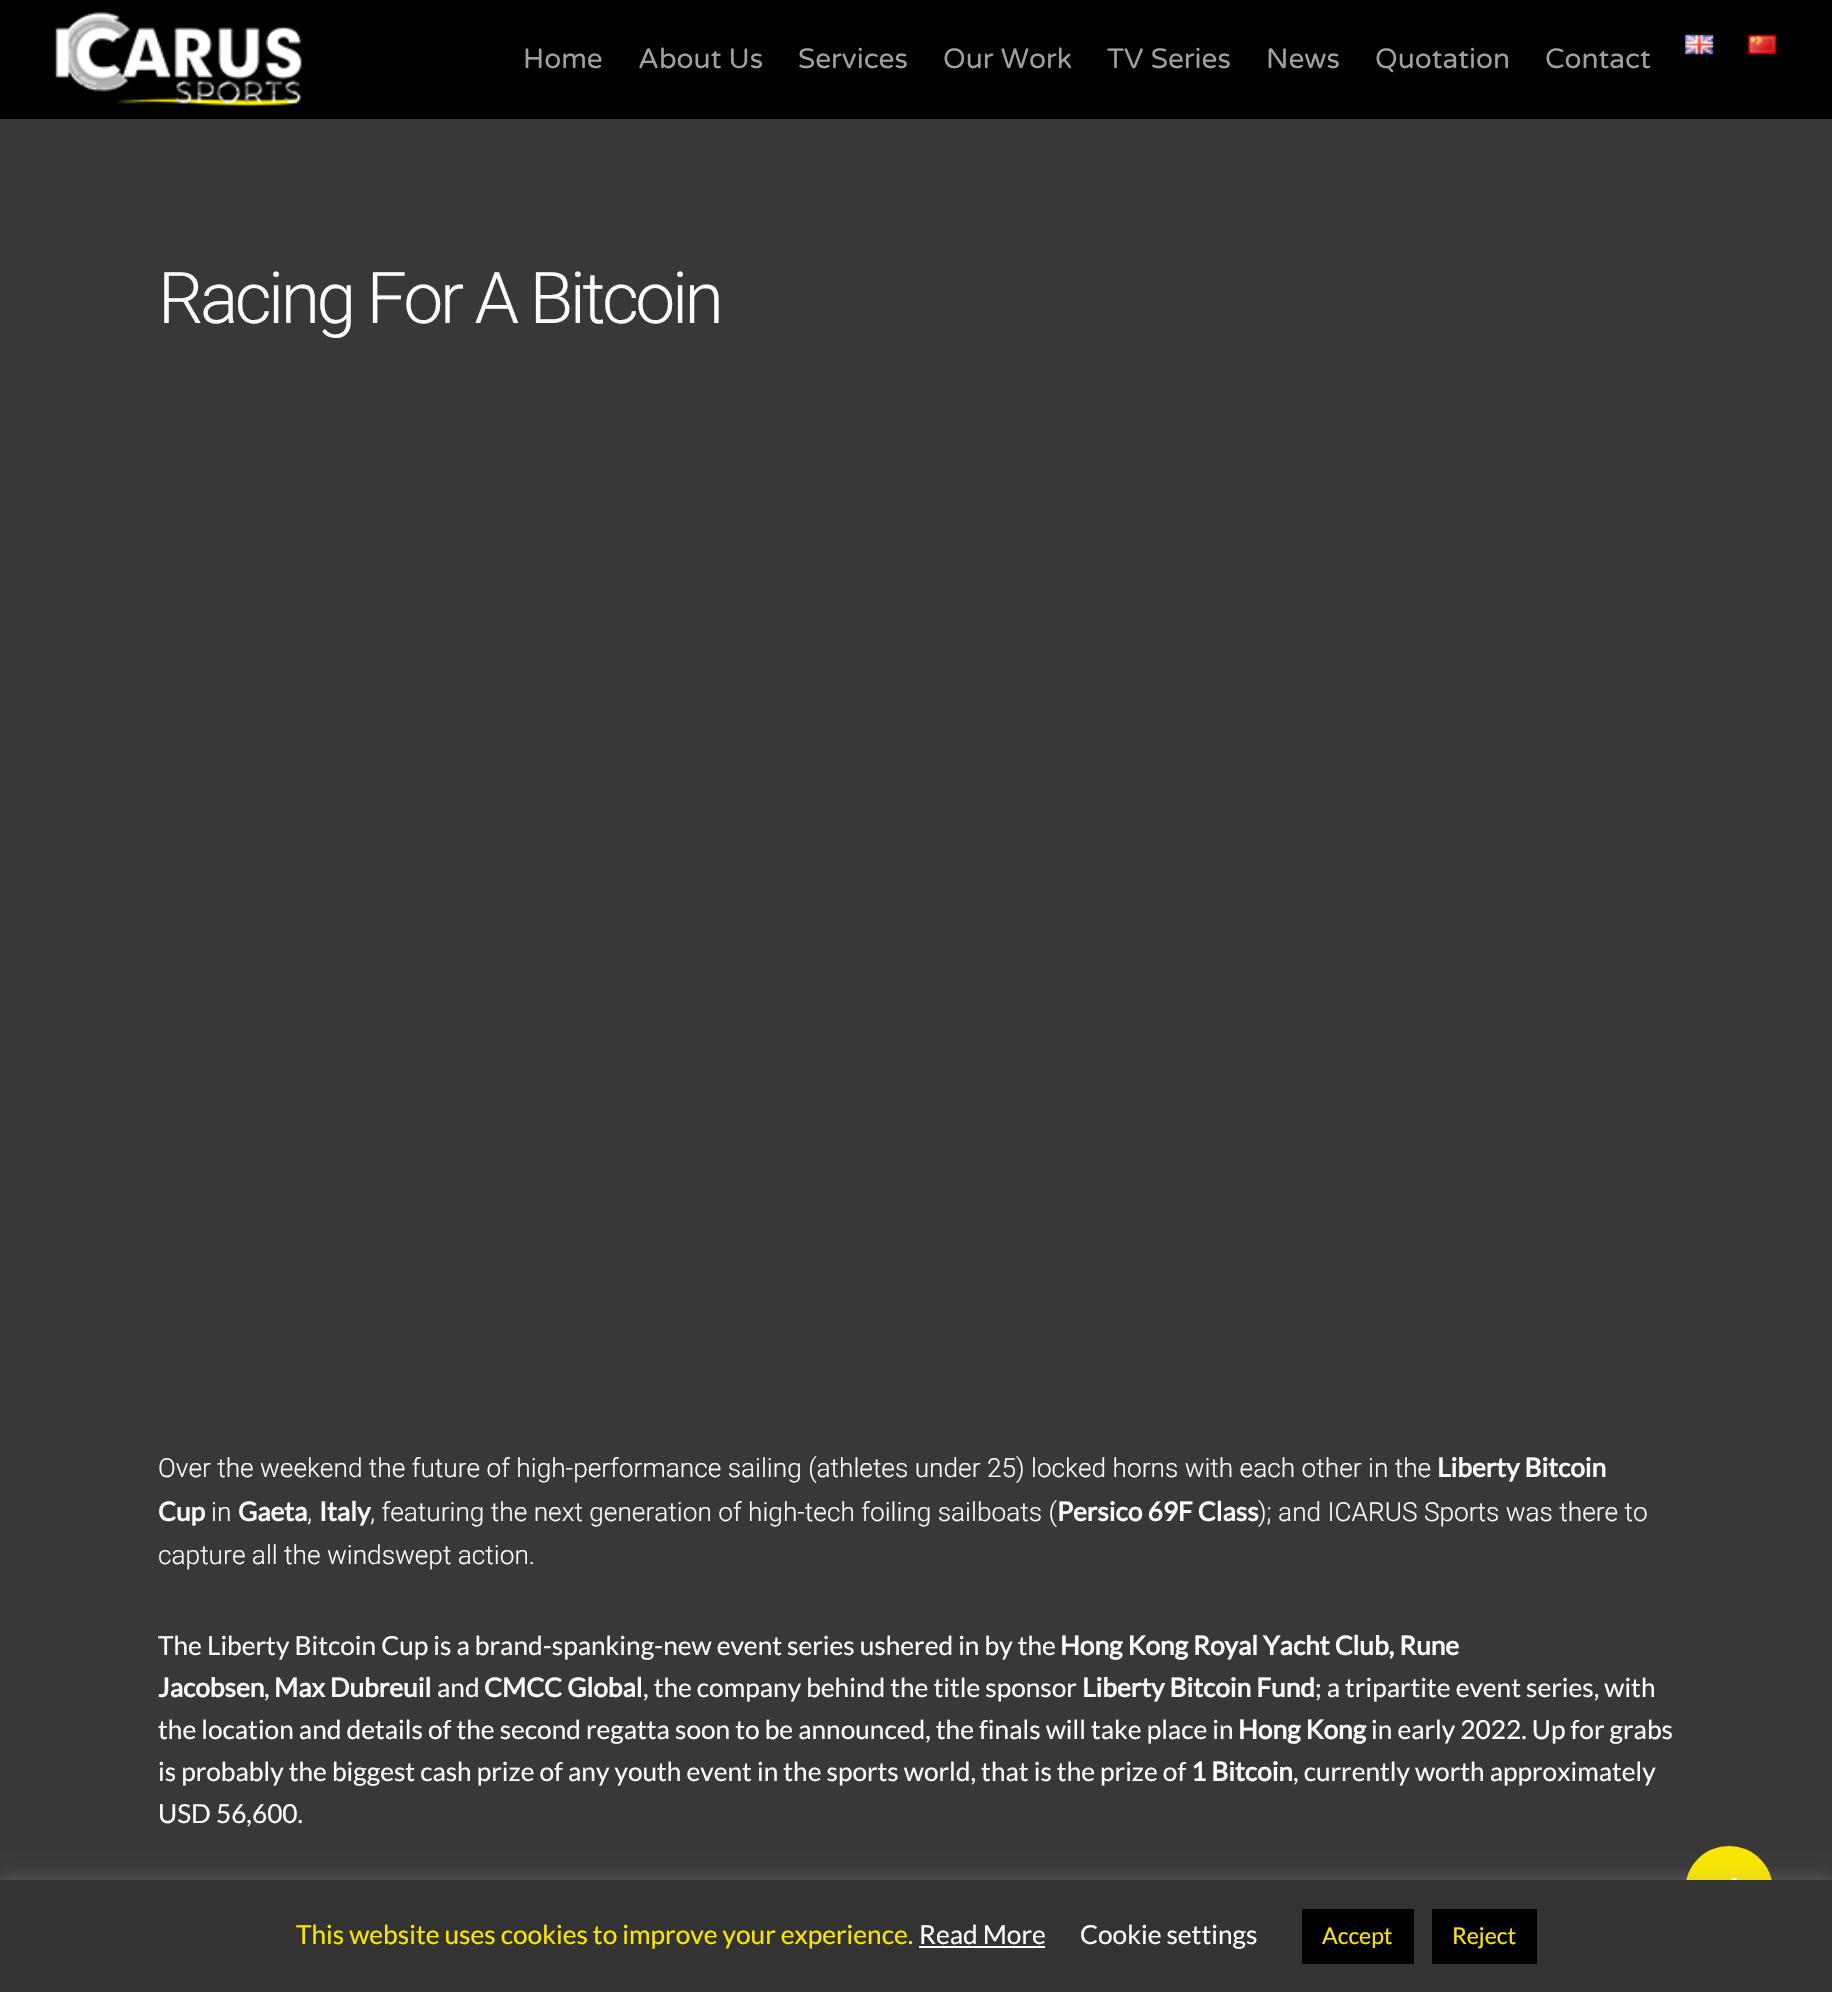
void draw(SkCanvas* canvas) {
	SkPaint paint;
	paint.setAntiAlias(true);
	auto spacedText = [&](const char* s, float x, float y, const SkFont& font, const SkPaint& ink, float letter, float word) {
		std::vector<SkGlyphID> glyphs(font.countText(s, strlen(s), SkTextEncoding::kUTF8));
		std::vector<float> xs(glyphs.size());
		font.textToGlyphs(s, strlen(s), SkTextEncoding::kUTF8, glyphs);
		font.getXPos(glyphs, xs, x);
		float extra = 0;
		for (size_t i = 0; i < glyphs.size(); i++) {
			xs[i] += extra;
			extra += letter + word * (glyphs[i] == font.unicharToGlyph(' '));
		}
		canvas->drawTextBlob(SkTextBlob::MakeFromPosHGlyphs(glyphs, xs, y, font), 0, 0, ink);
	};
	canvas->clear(0xff000000);
	canvas->drawImageRect(SkImages::DeferredFromEncodedData(SkData::MakeFromFileName("img1.png")), SkRect::MakeXYWH(55, 11, 248, 96), SkSamplingOptions());
	canvas->drawImageRect(SkImages::DeferredFromEncodedData(SkData::MakeFromFileName("img2.png")), SkRect::MakeXYWH(1685, 34, 29, 21), SkSamplingOptions());
	canvas->drawImageRect(SkImages::DeferredFromEncodedData(SkData::MakeFromFileName("img3.png")), SkRect::MakeXYWH(1748, 34, 29, 21), SkSamplingOptions());
	SkFont f1(fontMgr->matchFamilyStyle("Varela Round", SkFontStyle::Normal()), 28);
	f1.setSubpixel(true);
	paint.setColor(0xffa0a0a0);
	canvas->drawString("Home", 523, 68, f1, paint);
	canvas->drawString("About Us", 638, 68, f1, paint);
	canvas->drawString("Services", 798, 68, f1, paint);
	canvas->drawString("Our Work", 943, 68, f1, paint);
	canvas->drawString("TV Series", 1107, 68, f1, paint);
	canvas->drawString("News", 1266, 68, f1, paint);
	canvas->drawString("Quotation", 1375, 68, f1, paint);
	canvas->drawString("Contact", 1545, 68, f1, paint);
	paint.setColor(0xff383838);
	canvas->drawRect(SkRect::MakeXYWH(0, 119, 1832, 1761), paint);
	SkFont f2(fontMgr->matchFamilyStyle("Roboto", SkFontStyle(300, SkFontStyle::kNormal_Width, SkFontStyle::kUpright_Slant)), 71.5);
	f2.setSubpixel(true);
	paint.setColor(0xfffcfcfc);
	spacedText("Racing For A Bitcoin", 158, 323, f2, paint, -3.5, 0);
	SkFont f3(fontMgr->matchFamilyStyle("Roboto", SkFontStyle(300, SkFontStyle::kNormal_Width, SkFontStyle::kUpright_Slant)), 26.25);
	f3.setSubpixel(true);
	canvas->drawString("Over the weekend the future of high-performance sailing (athletes under 25) locked horns with each other in the", 158, 1477, f3, paint);
	SkFont f4(fontMgr->matchFamilyStyle("Lato", SkFontStyle::Bold()), 26.25);
	f4.setSubpixel(true);
	canvas->drawString("Liberty Bitcoin", 1437, 1477, f4, paint);
	canvas->drawString("Cup", 158, 1521, f4, paint);
	canvas->drawString("in", 211, 1521, f3, paint);
	canvas->drawString("Gaeta", 238, 1521, f4, paint);
	canvas->drawString(",", 307, 1521, f3, paint);
	canvas->drawString("Italy", 319, 1521, f4, paint);
	canvas->drawString(", featuring the next generation of high-tech foiling sailboats (", 370, 1521, f3, paint);
	canvas->drawString("Persico 69F Class", 1057, 1521, f4, paint);
	canvas->drawString("); and ICARUS Sports was there to", 1258, 1521, f3, paint);
	canvas->drawString("capture all the windswept action.", 158, 1564, f3, paint);
	SkFont f5(fontMgr->matchFamilyStyle("Lato", SkFontStyle::Normal()), 26.25);
	f5.setSubpixel(true);
	canvas->drawString("The Liberty Bitcoin Cup is a brand-spanking-new event series ushered in by the", 158, 1655, f5, paint);
	canvas->drawString("Hong Kong Royal Yacht Club, Rune", 1060, 1655, f4, paint);
	canvas->drawString("Jacobsen", 158, 1697, f4, paint);
	canvas->drawString(",", 264, 1697, f5, paint);
	canvas->drawString("Max Dubreuil", 274, 1697, f4, paint);
	canvas->drawString("and", 437, 1697, f5, paint);
	canvas->drawString("CMCC Global", 484, 1697, f4, paint);
	canvas->drawString(", the company behind the title sponsor", 643, 1697, f5, paint);
	canvas->drawString("Liberty Bitcoin Fund", 1082, 1697, f4, paint);
	canvas->drawString("; a tripartite event series, with", 1315, 1697, f5, paint);
	canvas->drawString("the location and details of the second regatta soon to be announced, the finals will take place in", 158, 1739, f5, paint);
	canvas->drawString("Hong Kong", 1238, 1739, f4, paint);
	canvas->drawString("in early 2022. Up for grabs", 1371, 1739, f5, paint);
	canvas->drawString("is probably the biggest cash prize of any youth event in the sports world, that is the prize of", 158, 1781, f5, paint);
	canvas->drawString("1 Bitcoin", 1191, 1781, f4, paint);
	canvas->drawString(", currently worth approximately", 1293, 1781, f5, paint);
	canvas->drawString("USD 56,600.", 158, 1823, f5, paint);
	paint.setColor(0xfff9e500);
	canvas->drawCircle(1729, 1890, 44, paint);
	canvas->drawImageRect(SkImages::DeferredFromEncodedData(SkData::MakeFromFileName("img4.png")), SkRect::MakeXYWH(1730, 1878, 8, 2), SkSamplingOptions());
	paint.setColor(0x4dacabab);
	paint.setMaskFilter(SkMaskFilter::MakeBlur(kNormal_SkBlurStyle, 9));
	canvas->drawRect(SkRect::MakeXYWH(0, 1878, 1832, 114), paint);
	paint.setMaskFilter(nullptr);
	paint.setColor(0xff333333);
	canvas->drawRect(SkRect::MakeXYWH(0, 1880, 1832, 112), paint);
	paint.setColor(0xfff9e500);
	canvas->drawString("This website uses cookies to improve your experience.", 296, 1944, f5, paint);
	paint.setColor(0xfffcfcfc);
	canvas->drawString("Read More", 919, 1944, f5, paint);
	paint.setColor(0xffffffff);
	canvas->drawRect(SkRect::MakeXYWH(919, 1946, 126, 2), paint);
	paint.setColor(0xfffcfcfc);
	canvas->drawString("Cookie settings", 1080, 1944, f5, paint);
	paint.setColor(0xff000000);
	canvas->drawRect(SkRect::MakeXYWH(1302, 1909, 112, 55), paint);
	SkFont f6(fontMgr->matchFamilyStyle("Lato", SkFontStyle::Normal()), 23);
	f6.setSubpixel(true);
	paint.setColor(0xfff9e500);
	canvas->drawString("Accept", 1322, 1944, f6, paint);
	paint.setColor(0xff000000);
	canvas->drawRect(SkRect::MakeXYWH(1432, 1909, 105, 55), paint);
	paint.setColor(0xfff9e500);
	canvas->drawString("Reject", 1452, 1944, f6, paint);
}
